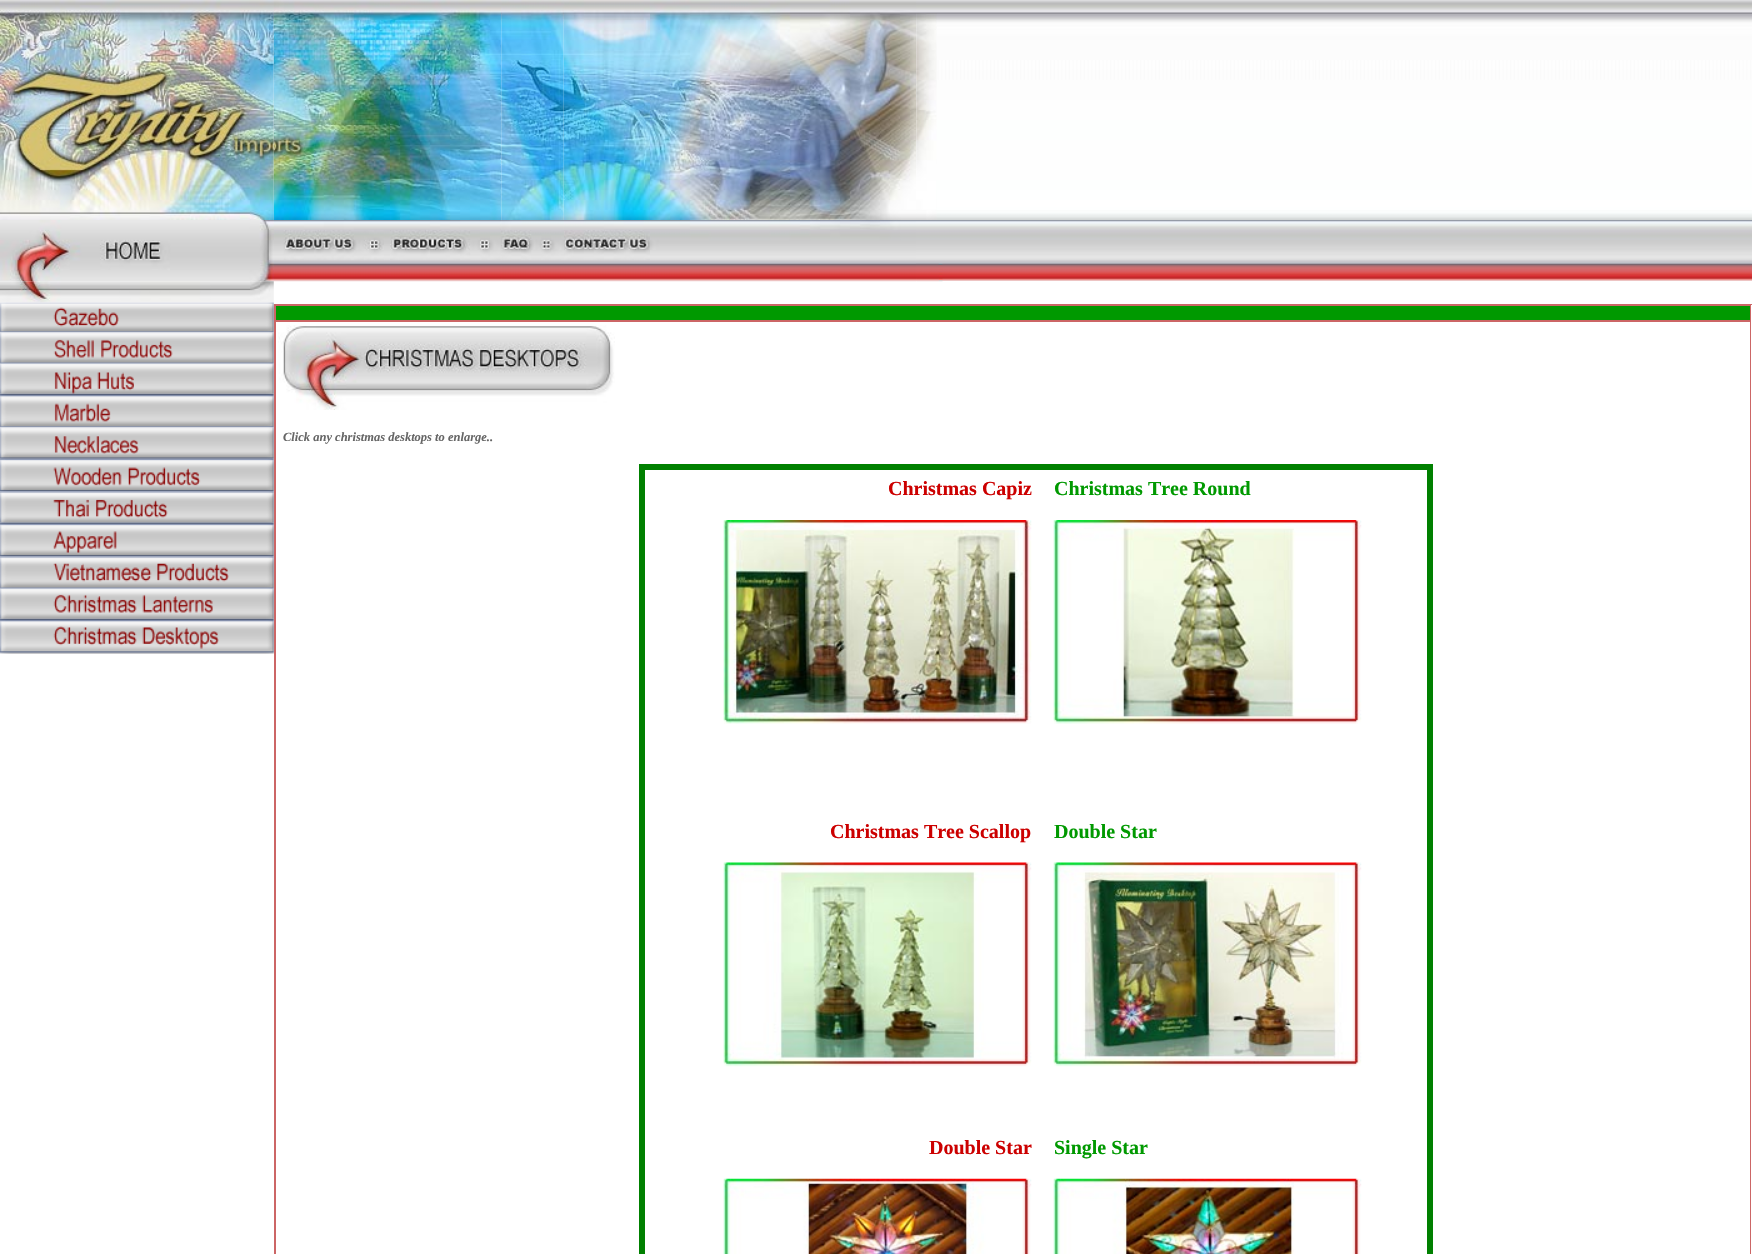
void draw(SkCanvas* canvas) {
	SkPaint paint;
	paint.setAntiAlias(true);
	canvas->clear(0xffffffff);
	canvas->drawImageRect(SkImages::DeferredFromEncodedData(SkData::MakeFromFileName("img1.png")), SkRect::MakeXYWH(273, 0, 1042, 220), SkSamplingOptions());
	canvas->drawImageRect(SkImages::DeferredFromEncodedData(SkData::MakeFromFileName("img2.png")), SkRect::MakeXYWH(0, 0, 274, 220), SkSamplingOptions());
	canvas->drawImageRect(SkImages::DeferredFromEncodedData(SkData::MakeFromFileName("img3.png")), SkRect::MakeXYWH(273, 0, 117, 220), SkSamplingOptions());
	canvas->drawImageRect(SkImages::DeferredFromEncodedData(SkData::MakeFromFileName("img4.png")), SkRect::MakeXYWH(390, 0, 112, 220), SkSamplingOptions());
	canvas->drawImageRect(SkImages::DeferredFromEncodedData(SkData::MakeFromFileName("img5.png")), SkRect::MakeXYWH(501, 0, 63, 220), SkSamplingOptions());
	canvas->drawImageRect(SkImages::DeferredFromEncodedData(SkData::MakeFromFileName("img6.png")), SkRect::MakeXYWH(563, 0, 87, 220), SkSamplingOptions());
	canvas->drawImageRect(SkImages::DeferredFromEncodedData(SkData::MakeFromFileName("img7.png")), SkRect::MakeXYWH(650, 0, 267, 220), SkSamplingOptions());
	canvas->drawImageRect(SkImages::DeferredFromEncodedData(SkData::MakeFromFileName("img8.png")), SkRect::MakeXYWH(916, 13, 21, 207), SkSamplingOptions());
	canvas->drawImageRect(SkImages::DeferredFromEncodedData(SkData::MakeFromFileName("img9.png")), SkRect::MakeXYWH(1315, 0, 437, 220), SkSamplingOptions());
	canvas->drawImageRect(SkImages::DeferredFromEncodedData(SkData::MakeFromFileName("img10.png")), SkRect::MakeXYWH(273, 220, 1042, 61), SkSamplingOptions());
	canvas->drawImageRect(SkImages::DeferredFromEncodedData(SkData::MakeFromFileName("img11.png")), SkRect::MakeXYWH(0, 220, 274, 62), SkSamplingOptions());
	canvas->drawImageRect(SkImages::DeferredFromEncodedData(SkData::MakeFromFileName("img12.png")), SkRect::MakeXYWH(274, 220, 116, 62), SkSamplingOptions());
	canvas->drawImageRect(SkImages::DeferredFromEncodedData(SkData::MakeFromFileName("img13.png")), SkRect::MakeXYWH(390, 220, 111, 62), SkSamplingOptions());
	canvas->drawImageRect(SkImages::DeferredFromEncodedData(SkData::MakeFromFileName("img14.png")), SkRect::MakeXYWH(501, 220, 63, 62), SkSamplingOptions());
	canvas->drawImageRect(SkImages::DeferredFromEncodedData(SkData::MakeFromFileName("img15.png")), SkRect::MakeXYWH(564, 220, 86, 62), SkSamplingOptions());
	canvas->drawImageRect(SkImages::DeferredFromEncodedData(SkData::MakeFromFileName("img16.png")), SkRect::MakeXYWH(650, 220, 266, 62), SkSamplingOptions());
	canvas->drawImageRect(SkImages::DeferredFromEncodedData(SkData::MakeFromFileName("img17.png")), SkRect::MakeXYWH(916, 278, 23, 4), SkSamplingOptions());
	canvas->drawImageRect(SkImages::DeferredFromEncodedData(SkData::MakeFromFileName("img18.png")), SkRect::MakeXYWH(938, 263, 5, 19), SkSamplingOptions());
	canvas->drawImageRect(SkImages::DeferredFromEncodedData(SkData::MakeFromFileName("img19.png")), SkRect::MakeXYWH(1315, 220, 437, 61), SkSamplingOptions());
	canvas->drawImageRect(SkImages::DeferredFromEncodedData(SkData::MakeFromFileName("img20.png")), SkRect::MakeXYWH(0, 281, 274, 22), SkSamplingOptions());
	canvas->drawImageRect(SkImages::DeferredFromEncodedData(SkData::MakeFromFileName("img21.png")), SkRect::MakeXYWH(0, 302, 274, 31), SkSamplingOptions());
	canvas->drawImageRect(SkImages::DeferredFromEncodedData(SkData::MakeFromFileName("img22.png")), SkRect::MakeXYWH(0, 332, 274, 32), SkSamplingOptions());
	canvas->drawImageRect(SkImages::DeferredFromEncodedData(SkData::MakeFromFileName("img23.png")), SkRect::MakeXYWH(0, 363, 274, 31), SkSamplingOptions());
	canvas->drawImageRect(SkImages::DeferredFromEncodedData(SkData::MakeFromFileName("img24.png")), SkRect::MakeXYWH(0, 393, 274, 35), SkSamplingOptions());
	canvas->drawImageRect(SkImages::DeferredFromEncodedData(SkData::MakeFromFileName("img25.png")), SkRect::MakeXYWH(0, 427, 274, 32), SkSamplingOptions());
	canvas->drawImageRect(SkImages::DeferredFromEncodedData(SkData::MakeFromFileName("img26.png")), SkRect::MakeXYWH(0, 458, 274, 34), SkSamplingOptions());
	canvas->drawImageRect(SkImages::DeferredFromEncodedData(SkData::MakeFromFileName("img27.png")), SkRect::MakeXYWH(0, 491, 274, 32), SkSamplingOptions());
	canvas->drawImageRect(SkImages::DeferredFromEncodedData(SkData::MakeFromFileName("img28.png")), SkRect::MakeXYWH(0, 522, 274, 35), SkSamplingOptions());
	canvas->drawImageRect(SkImages::DeferredFromEncodedData(SkData::MakeFromFileName("img29.png")), SkRect::MakeXYWH(0, 556, 274, 33), SkSamplingOptions());
	canvas->drawImageRect(SkImages::DeferredFromEncodedData(SkData::MakeFromFileName("img30.png")), SkRect::MakeXYWH(0, 588, 274, 31), SkSamplingOptions());
	canvas->drawImageRect(SkImages::DeferredFromEncodedData(SkData::MakeFromFileName("img31.png")), SkRect::MakeXYWH(0, 618, 274, 36), SkSamplingOptions());
	paint.setStroke(true);
	paint.setStrokeWidth(1);
	paint.setColor(0xffcc6666);
	canvas->drawRect(SkRect::MakeXYWH(274.5, 304.5, 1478, 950), paint);
	paint.setStroke(false);
	paint.setColor(0xff009900);
	canvas->drawRect(SkRect::MakeXYWH(275.5, 305.5, 1475, 15), paint);
	paint.setStroke(true);
	paint.setColor(0xffcc6666);
	canvas->drawRect(SkRect::MakeXYWH(275.5, 305.5, 1475, 15), paint);
	canvas->drawRect(SkRect::MakeXYWH(275.5, 321.5, 1475, 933), paint);
	canvas->drawImageRect(SkImages::DeferredFromEncodedData(SkData::MakeFromFileName("img32.png")), SkRect::MakeXYWH(278, 325, 337, 85), SkSamplingOptions());
	SkFont f1(fontMgr->matchFamilyStyle("Liberation Serif", SkFontStyle::BoldItalic()), 12.5);
	f1.setSubpixel(true);
	paint.setStroke(false);
	paint.setColor(0xff666666);
	canvas->drawString("Click any christmas desktops to enlarge..", 283, 441, f1, paint);
	paint.setStroke(true);
	paint.setStrokeWidth(6);
	paint.setColor(0xff008000);
	canvas->drawRect(SkRect::MakeXYWH(642, 467, 788, 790), paint);
	SkFont f2(fontMgr->matchFamilyStyle("Liberation Serif", SkFontStyle::Bold()), 20);
	f2.setSubpixel(true);
	paint.setStroke(false);
	paint.setColor(0xffcc0000);
	canvas->drawString("Christmas Capiz", 888, 495, f2, paint);
	canvas->drawImageRect(SkImages::DeferredFromEncodedData(SkData::MakeFromFileName("img33.png")), SkRect::MakeXYWH(723, 520, 309, 204), SkSamplingOptions());
	paint.setColor(0xff009900);
	canvas->drawString("Christmas Tree Round", 1054, 495, f2, paint);
	canvas->drawImageRect(SkImages::DeferredFromEncodedData(SkData::MakeFromFileName("img34.png")), SkRect::MakeXYWH(1053, 520, 309, 204), SkSamplingOptions());
	paint.setColor(0xffcc0000);
	canvas->drawString("Christmas Tree Scallop", 830, 838, f2, paint);
	canvas->drawImageRect(SkImages::DeferredFromEncodedData(SkData::MakeFromFileName("img35.png")), SkRect::MakeXYWH(723, 862, 309, 205), SkSamplingOptions());
	paint.setColor(0xff009900);
	canvas->drawString("Double Star", 1054, 838, f2, paint);
	canvas->drawImageRect(SkImages::DeferredFromEncodedData(SkData::MakeFromFileName("img36.png")), SkRect::MakeXYWH(1053, 862, 309, 205), SkSamplingOptions());
	paint.setColor(0xffcc0000);
	canvas->drawString("Double Star", 929, 1154, f2, paint);
	canvas->drawImageRect(SkImages::DeferredFromEncodedData(SkData::MakeFromFileName("img37.png")), SkRect::MakeXYWH(723, 1178, 309, 76), SkSamplingOptions());
	paint.setColor(0xff009900);
	canvas->drawString("Single Star", 1054, 1154, f2, paint);
	canvas->drawImageRect(SkImages::DeferredFromEncodedData(SkData::MakeFromFileName("img38.png")), SkRect::MakeXYWH(1053, 1178, 309, 76), SkSamplingOptions());
}
